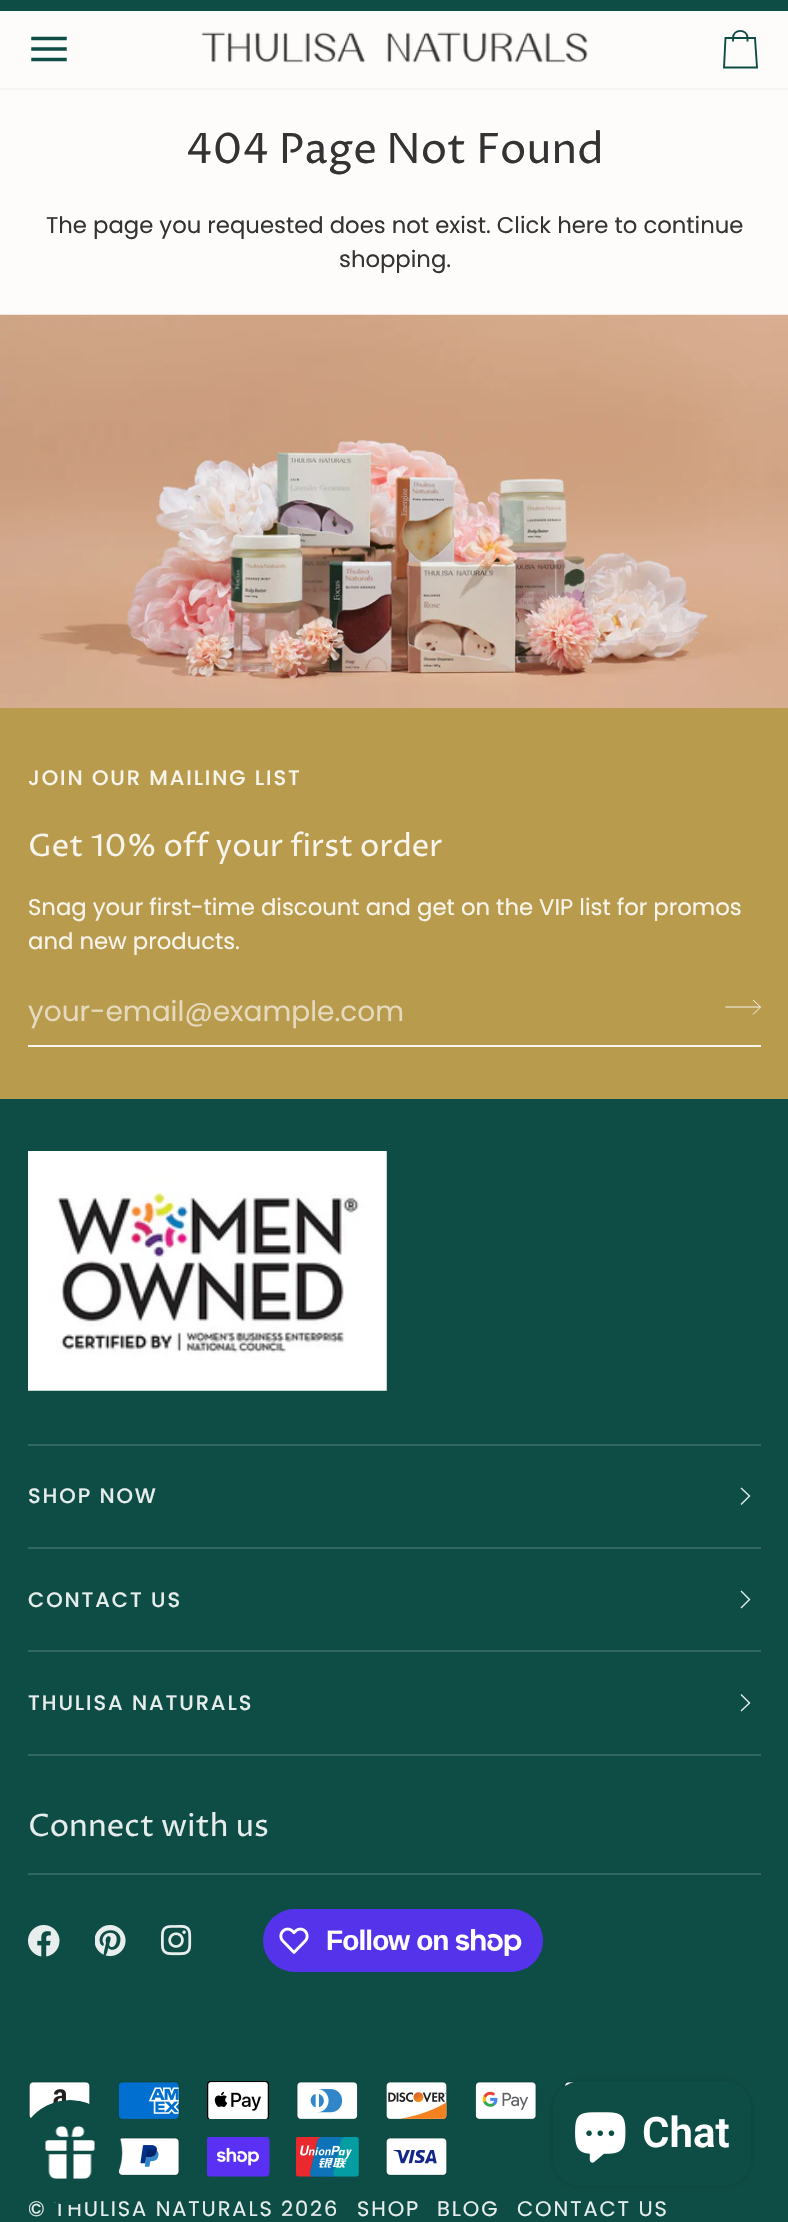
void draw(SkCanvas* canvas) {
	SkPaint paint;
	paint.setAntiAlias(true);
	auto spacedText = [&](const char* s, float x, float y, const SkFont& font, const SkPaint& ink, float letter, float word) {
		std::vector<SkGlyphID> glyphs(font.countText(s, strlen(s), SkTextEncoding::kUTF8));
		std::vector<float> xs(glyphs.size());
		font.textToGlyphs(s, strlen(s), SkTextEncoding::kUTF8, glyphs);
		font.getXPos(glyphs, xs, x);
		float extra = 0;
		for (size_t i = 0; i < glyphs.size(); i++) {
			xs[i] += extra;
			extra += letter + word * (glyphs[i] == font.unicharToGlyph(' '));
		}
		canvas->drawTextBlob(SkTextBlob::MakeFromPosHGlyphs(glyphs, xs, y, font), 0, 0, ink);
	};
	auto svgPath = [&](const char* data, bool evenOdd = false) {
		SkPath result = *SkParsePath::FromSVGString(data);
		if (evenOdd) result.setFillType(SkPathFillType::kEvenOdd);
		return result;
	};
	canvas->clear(0xfffdfcfa);
	paint.setColor(0xff0e4d46);
	canvas->drawRect(SkRect::MakeXYWH(0, 0, 788, 11), paint);
	paint.setColor(0xfff7f5f4);
	canvas->drawRect(SkRect::MakeXYWH(0, 88, 788, 2), paint);
	paint.setStroke(true);
	paint.setStrokeWidth(3.5);
	paint.setStrokeCap(SkPaint::kSquare_Cap);
	paint.setColor(0xff0e4d46);
	canvas->drawPath(svgPath("M65 38.5H33M65 49H33M65 59.5H33"), paint);
	canvas->drawImageRect(SkImages::DeferredFromEncodedData(SkData::MakeFromFileName("img1.png")), SkRect::MakeXYWH(201, 32, 387, 31), SkSamplingOptions());
	paint.setStrokeWidth(1.9);
	paint.setStrokeCap(SkPaint::kButt_Cap);
	canvas->drawPath(svgPath("M747.5 41.5V38H755L757 67.5H724L725.5 38H733C733 28.5 747.5 28.5 747.5 38H733V41.5"), paint);
	SkFont f1(fontMgr->matchFamilyStyle("Proza Libre", SkFontStyle::Normal()), 42);
	f1.setSubpixel(true);
	paint.setStroke(false);
	paint.setColor(0xff333333);
	canvas->drawString("404 Page Not Found", 186, 163, f1, paint);
	SkFont f2(fontMgr->matchFamilyStyle("Poppins", SkFontStyle::Normal()), 22.75);
	f2.setSubpixel(true);
	canvas->drawString("The page you requested does not exist. Click here to continue", 46, 233, f2, paint);
	canvas->drawString("shopping.", 339, 267, f2, paint);
	paint.setColor(0xffb99b4d);
	canvas->drawRect(SkRect::MakeXYWH(0, 708, 788, 391), paint);
	canvas->drawImageRect(SkImages::DeferredFromEncodedData(SkData::MakeFromFileName("img2.png")), SkRect::MakeXYWH(0, 314, 788, 395), SkSamplingOptions());
	SkFont f3(fontMgr->matchFamilyStyle("Poppins", SkFontStyle(500, SkFontStyle::kNormal_Width, SkFontStyle::kUpright_Slant)), 21);
	f3.setSubpixel(true);
	paint.setColor(0xfff8f5ed);
	spacedText("JOIN OUR MAILING LIST", 28, 785, f3, paint, 1.9, 0);
	SkFont f4(fontMgr->matchFamilyStyle("Proza Libre", SkFontStyle::Normal()), 30.8);
	f4.setSubpixel(true);
	canvas->drawString("Get 10% off your first order", 28, 856, f4, paint);
	canvas->drawString("Snag your first-time discount and get on the VIP list for promos", 28, 915, f2, paint);
	canvas->drawString("and new products.", 28, 949, f2, paint);
	canvas->drawRect(SkRect::MakeXYWH(28, 1045, 733, 2), paint);
	SkFont f5(fontMgr->matchFamilyStyle("Poppins", SkFontStyle::Normal()), 28);
	f5.setSubpixel(true);
	paint.setColor(0xffe5dabe);
	canvas->drawString("your-email@example.com", 28, 1021, f5, paint);
	paint.setStroke(true);
	paint.setStrokeWidth(1);
	paint.setColor(0xfff8f5ed);
	canvas->drawPath(svgPath("M753 1000L760.5 1007L753 1014.5M725.5 1007H760.5"), paint);
	paint.setStroke(false);
	paint.setColor(0xff0e4d45);
	canvas->drawRect(SkRect::MakeXYWH(0, 1099, 788, 1123), paint);
	canvas->drawImageRect(SkImages::DeferredFromEncodedData(SkData::MakeFromFileName("img3.png")), SkRect::MakeXYWH(28, 1151, 359, 240), SkSamplingOptions());
	paint.setColor(0xff326861);
	canvas->drawRect(SkRect::MakeXYWH(28, 1444, 733, 2), paint);
	canvas->drawRect(SkRect::MakeXYWH(28, 1547, 733, 2), paint);
	paint.setColor(0xffe7edec);
	spacedText("SHOP NOW", 28, 1503, f3, paint, 1.9, 0);
	paint.setStroke(true);
	paint.setStrokeWidth(1.4);
	paint.setStrokeCap(SkPaint::kSquare_Cap);
	canvas->drawPath(svgPath("M741.5 1504L749.5 1496L741.5 1488.5"), paint);
	paint.setStroke(false);
	paint.setColor(0xff326861);
	canvas->drawRect(SkRect::MakeXYWH(28, 1650, 733, 2), paint);
	paint.setColor(0xffe7edec);
	spacedText("CONTACT US", 28, 1607, f3, paint, 1.9, 0);
	paint.setStroke(true);
	canvas->drawPath(svgPath("M741.5 1607.5L749.5 1599.5L741.5 1591.5"), paint);
	paint.setStroke(false);
	paint.setColor(0xff326861);
	canvas->drawRect(SkRect::MakeXYWH(28, 1754, 733, 2), paint);
	paint.setColor(0xffe7edec);
	spacedText("THULISA NATURALS", 28, 1710, f3, paint, 1.9, 0);
	paint.setStroke(true);
	canvas->drawPath(svgPath("M741.5 1710.5L749.5 1703L741.5 1695"), paint);
	paint.setStroke(false);
	canvas->drawString("Connect with us", 28, 1836, f4, paint);
	paint.setColor(0xff326861);
	canvas->drawRect(SkRect::MakeXYWH(28, 1873, 733, 2), paint);
	canvas->drawImageRect(SkImages::DeferredFromEncodedData(SkData::MakeFromFileName("img4.png")), SkRect::MakeXYWH(28, 1925, 32, 32), SkSamplingOptions());
	canvas->drawImageRect(SkImages::DeferredFromEncodedData(SkData::MakeFromFileName("img5.png")), SkRect::MakeXYWH(95, 1925, 31, 32), SkSamplingOptions());
	canvas->drawImageRect(SkImages::DeferredFromEncodedData(SkData::MakeFromFileName("img6.png")), SkRect::MakeXYWH(161, 1925, 31, 31), SkSamplingOptions());
	paint.setColor(0xff5433eb);
	canvas->drawRoundRect(SkRect::MakeXYWH(263, 1909, 280, 63), 31.5, 31.5, paint);
	canvas->drawImageRect(SkImages::DeferredFromEncodedData(SkData::MakeFromFileName("img7.png")), SkRect::MakeXYWH(279, 1927, 30, 27), SkSamplingOptions());
	SkFont f6(fontMgr->matchFamilyStyle("Liberation Sans", SkFontStyle::Bold()), 28);
	f6.setSubpixel(true);
	paint.setColor(0xffffffff);
	spacedText("Follow on", 326, 1950, f6, paint, -0.9, 0);
	canvas->drawImageRect(SkImages::DeferredFromEncodedData(SkData::MakeFromFileName("img8.png")), SkRect::MakeXYWH(455, 1929, 67, 27), SkSamplingOptions());
	canvas->drawImageRect(SkImages::DeferredFromEncodedData(SkData::MakeFromFileName("img11.png")), SkRect::MakeXYWH(28, 2081, 63, 38), SkSamplingOptions());
	canvas->drawImageRect(SkImages::DeferredFromEncodedData(SkData::MakeFromFileName("img12.png")), SkRect::MakeXYWH(118, 2081, 62, 38), SkSamplingOptions());
	canvas->drawImageRect(SkImages::DeferredFromEncodedData(SkData::MakeFromFileName("img18.png")), SkRect::MakeXYWH(118, 2137, 62, 39), SkSamplingOptions());
	SkFont f7(fontMgr->matchFamilyStyle("Poppins", SkFontStyle::Normal()), 21);
	f7.setSubpixel(true);
	paint.setColor(0xffe7edec);
	spacedText("© THULISA NATURALS", 28, 2216, f7, paint, 1.9, 0);
	canvas->drawImageRect(SkImages::DeferredFromEncodedData(SkData::MakeFromFileName("img9.png")), SkRect::MakeXYWH(28, 2100, 95, 105), SkSamplingOptions());
	canvas->drawImageRect(SkImages::DeferredFromEncodedData(SkData::MakeFromFileName("img17.png")), SkRect::MakeXYWH(564, 2081, 17, 6), SkSamplingOptions());
	paint.setColor(0x26000000);
	paint.setMaskFilter(SkMaskFilter::MakeBlur(kNormal_SkBlurStyle, 4.5));
	canvas->drawRoundRect(SkRect::MakeXYWH(553, 2081, 198, 105), 28, 28, paint);
	paint.setMaskFilter(nullptr);
	paint.setColor(0xff0e4d46);
	canvas->drawRoundRect(SkRect::MakeXYWH(553, 2081, 198, 105), 28, 28, paint);
	canvas->drawImageRect(SkImages::DeferredFromEncodedData(SkData::MakeFromFileName("img10.png")), SkRect::MakeXYWH(575, 2112, 51, 51), SkSamplingOptions());
	SkFont f8(fontMgr->matchFamilyStyle("Roboto", SkFontStyle(600, SkFontStyle::kNormal_Width, SkFontStyle::kUpright_Slant)), 42);
	f8.setSubpixel(true);
	paint.setColor(0xffffffff);
	canvas->drawString("Chat", 642, 2147, f8, paint);
	canvas->drawImageRect(SkImages::DeferredFromEncodedData(SkData::MakeFromFileName("img13.png")), SkRect::MakeXYWH(207, 2081, 63, 38), SkSamplingOptions());
	canvas->drawImageRect(SkImages::DeferredFromEncodedData(SkData::MakeFromFileName("img14.png")), SkRect::MakeXYWH(296, 2081, 62, 38), SkSamplingOptions());
	canvas->drawImageRect(SkImages::DeferredFromEncodedData(SkData::MakeFromFileName("img15.png")), SkRect::MakeXYWH(385, 2081, 63, 38), SkSamplingOptions());
	canvas->drawImageRect(SkImages::DeferredFromEncodedData(SkData::MakeFromFileName("img16.png")), SkRect::MakeXYWH(475, 2081, 62, 38), SkSamplingOptions());
	canvas->drawImageRect(SkImages::DeferredFromEncodedData(SkData::MakeFromFileName("img19.png")), SkRect::MakeXYWH(207, 2137, 63, 40), SkSamplingOptions());
	canvas->drawImageRect(SkImages::DeferredFromEncodedData(SkData::MakeFromFileName("img20.png")), SkRect::MakeXYWH(296, 2137, 63, 40), SkSamplingOptions());
	canvas->drawImageRect(SkImages::DeferredFromEncodedData(SkData::MakeFromFileName("img21.png")), SkRect::MakeXYWH(385, 2137, 63, 39), SkSamplingOptions());
	paint.setColor(0xffe7edec);
	spacedText("2026", 281, 2216, f7, paint, 1.9, 0);
	spacedText("SHOP", 357, 2216, f7, paint, 1.9, 0);
	spacedText("BLOG", 437, 2216, f7, paint, 1.9, 0);
	spacedText("CONTACT US", 517, 2216, f7, paint, 1.9, 0);
}
